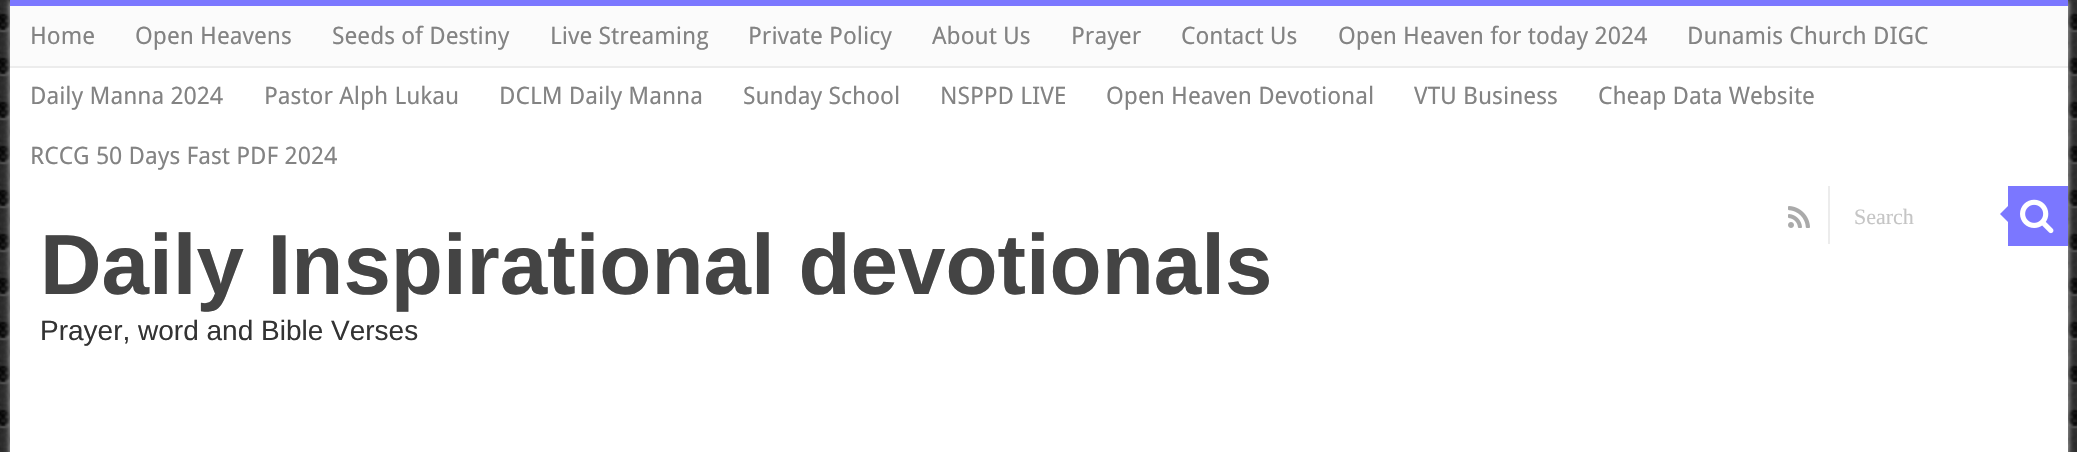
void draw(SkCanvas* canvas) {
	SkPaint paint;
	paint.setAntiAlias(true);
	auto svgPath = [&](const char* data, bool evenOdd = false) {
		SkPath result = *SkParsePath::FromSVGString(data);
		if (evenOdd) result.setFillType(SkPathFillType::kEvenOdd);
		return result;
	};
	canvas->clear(0xffffffff);
	canvas->drawImageRect(SkImages::DeferredFromEncodedData(SkData::MakeFromFileName("img1.png")), SkRect::MakeXYWH(0, 0, 2077, 452), SkSamplingOptions());
	paint.setColor(0xffcacaca);
	paint.setMaskFilter(SkMaskFilter::MakeBlur(kNormal_SkBlurStyle, 3));
	canvas->drawRect(SkRect::MakeXYWH(10, 0, 2058, 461), paint);
	paint.setMaskFilter(nullptr);
	paint.setColor(0xffffffff);
	canvas->drawRect(SkRect::MakeXYWH(10, 68, 2058, 384), paint);
	paint.setColor(0xff7b77ff);
	canvas->drawRect(SkRect::MakeXYWH(10, 0, 2058, 6), paint);
	paint.setColor(0xfffbfbfb);
	canvas->drawRect(SkRect::MakeXYWH(10, 6, 2058, 60), paint);
	paint.setColor(0xffececec);
	canvas->drawRect(SkRect::MakeXYWH(10, 66, 2058, 2), paint);
	SkFont f1(fontMgr->matchFamilyStyle("Droid Sans", SkFontStyle::Normal()), 24);
	f1.setSubpixel(true);
	paint.setColor(0xff838383);
	canvas->drawString("Home", 30, 44, f1, paint);
	canvas->drawString("Open Heavens", 135, 44, f1, paint);
	canvas->drawString("Seeds of Destiny", 332, 44, f1, paint);
	canvas->drawString("Live Streaming", 550, 44, f1, paint);
	canvas->drawString("Private Policy", 748, 44, f1, paint);
	canvas->drawString("About Us", 932, 44, f1, paint);
	canvas->drawString("Prayer", 1071, 44, f1, paint);
	canvas->drawString("Contact Us", 1181, 44, f1, paint);
	canvas->drawString("Open Heaven for today 2024", 1338, 44, f1, paint);
	canvas->drawString("Dunamis Church DIGC", 1687, 44, f1, paint);
	canvas->drawString("Daily Manna 2024", 30, 104, f1, paint);
	canvas->drawString("Pastor Alph Lukau", 264, 104, f1, paint);
	canvas->drawString("DCLM Daily Manna", 499, 104, f1, paint);
	canvas->drawString("Sunday School", 743, 104, f1, paint);
	canvas->drawString("NSPPD LIVE", 940, 104, f1, paint);
	canvas->drawString("Open Heaven Devotional", 1106, 104, f1, paint);
	canvas->drawString("VTU Business", 1414, 104, f1, paint);
	canvas->drawString("Cheap Data Website", 1598, 104, f1, paint);
	canvas->drawString("RCCG 50 Days Fast PDF 2024", 30, 164, f1, paint);
	canvas->drawImageRect(SkImages::DeferredFromEncodedData(SkData::MakeFromFileName("img2.png")), SkRect::MakeXYWH(1788, 206, 22, 22), SkSamplingOptions());
	paint.setColor(0xffececec);
	canvas->drawRect(SkRect::MakeXYWH(1828, 186, 2, 58), paint);
	SkFont f2(fontMgr->matchFamilyStyle("Liberation Serif", SkFontStyle::Normal()), 22);
	f2.setSubpixel(true);
	paint.setColor(0xffc5c5c5);
	canvas->drawString("Search", 1854, 224, f2, paint);
	paint.setColor(0xff7b77ff);
	canvas->drawRect(SkRect::MakeXYWH(2008, 186, 60, 60), paint);
	canvas->drawImageRect(SkImages::DeferredFromEncodedData(SkData::MakeFromFileName("img3.png")), SkRect::MakeXYWH(2020, 199, 34, 35), SkSamplingOptions());
	canvas->drawPath(svgPath("M2008 206V222L2000 214Z"), paint);
	SkFont f3(fontMgr->matchFamilyStyle("Liberation Sans", SkFontStyle::Bold()), 85.3);
	f3.setSubpixel(true);
	paint.setColor(0xff444444);
	canvas->drawString("Daily Inspirational devotionals", 40, 294, f3, paint);
	SkFont f4(fontMgr->matchFamilyStyle("Liberation Sans", SkFontStyle::Normal()), 28);
	f4.setSubpixel(true);
	paint.setColor(0xff333333);
	canvas->drawString("Prayer, word and Bible Verses", 40, 340, f4, paint);
}
